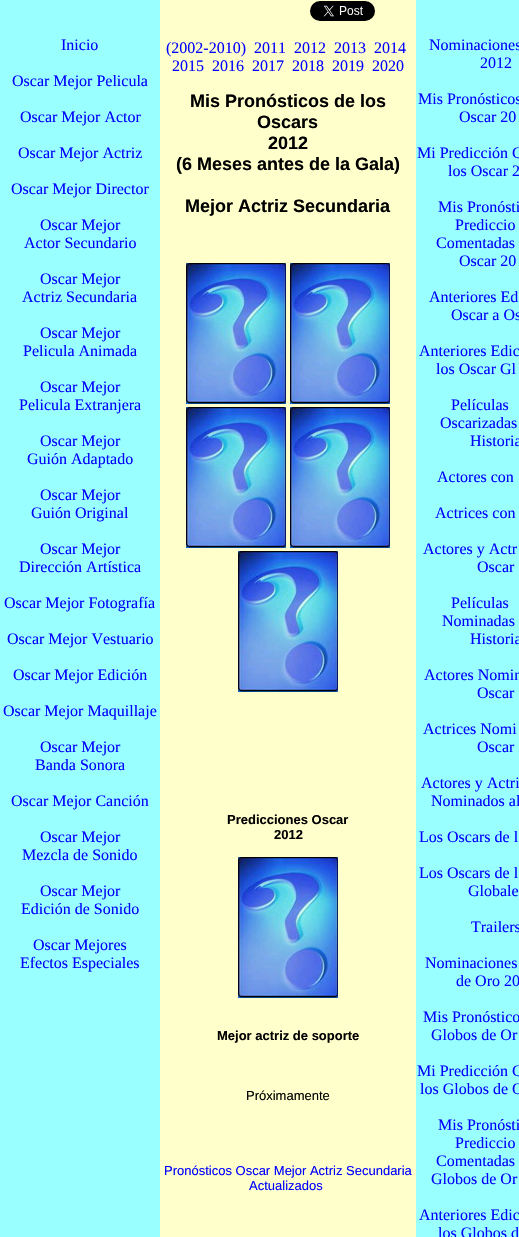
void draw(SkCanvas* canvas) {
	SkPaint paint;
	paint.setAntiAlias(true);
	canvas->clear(0xffffffcc);
	paint.setColor(0xff99ffff);
	canvas->drawRect(SkRect::MakeXYWH(0, 0, 160, 1237), paint);
	SkFont f1(fontMgr->matchFamilyStyle("Liberation Serif", SkFontStyle::Normal()), 16);
	f1.setSubpixel(true);
	paint.setColor(0xff0000ff);
	canvas->drawString("Inicio", 61, 50, f1, paint);
	canvas->drawString("Oscar Mejor Pelicula", 12, 86, f1, paint);
	canvas->drawString("Oscar Mejor Actor", 20, 122, f1, paint);
	canvas->drawString("Oscar Mejor Actriz", 18, 158, f1, paint);
	canvas->drawString("Oscar Mejor Director", 11, 194, f1, paint);
	canvas->drawString("Oscar Mejor", 40, 230, f1, paint);
	canvas->drawString("Actor Secundario", 24, 248, f1, paint);
	canvas->drawString("Oscar Mejor", 40, 284, f1, paint);
	canvas->drawString("Actriz Secundaria", 22, 302, f1, paint);
	canvas->drawString("Oscar Mejor", 40, 338, f1, paint);
	canvas->drawString("Pelicula Animada", 23, 356, f1, paint);
	canvas->drawString("Oscar Mejor", 40, 392, f1, paint);
	canvas->drawString("Pelicula Extranjera", 19, 410, f1, paint);
	canvas->drawString("Oscar Mejor", 40, 446, f1, paint);
	canvas->drawString("Guión Adaptado", 27, 464, f1, paint);
	canvas->drawString("Oscar Mejor", 40, 500, f1, paint);
	canvas->drawString("Guión Original", 31, 518, f1, paint);
	canvas->drawString("Oscar Mejor", 40, 554, f1, paint);
	canvas->drawString("Dirección Artística", 19, 572, f1, paint);
	canvas->drawString("Oscar Mejor Fotografía", 4, 608, f1, paint);
	canvas->drawString("Oscar Mejor Vestuario", 7, 644, f1, paint);
	canvas->drawString("Oscar Mejor Edición", 13, 680, f1, paint);
	canvas->drawString("Oscar Mejor Maquillaje", 3, 716, f1, paint);
	canvas->drawString("Oscar Mejor", 40, 752, f1, paint);
	canvas->drawString("Banda Sonora", 35, 770, f1, paint);
	canvas->drawString("Oscar Mejor Canción", 11, 806, f1, paint);
	canvas->drawString("Oscar Mejor", 40, 842, f1, paint);
	canvas->drawString("Mezcla de Sonido", 22, 860, f1, paint);
	canvas->drawString("Oscar Mejor", 40, 896, f1, paint);
	canvas->drawString("Edición de Sonido", 21, 914, f1, paint);
	canvas->drawString("Oscar Mejores", 33, 950, f1, paint);
	canvas->drawString("Efectos Especiales", 20, 968, f1, paint);
	canvas->drawImageRect(SkImages::DeferredFromEncodedData(SkData::MakeFromFileName("img1.png")), SkRect::MakeXYWH(310, 1, 65, 20), SkSamplingOptions());
	canvas->drawString("(2002-2010)", 166, 53, f1, paint);
	canvas->drawString("2011", 254, 53, f1, paint);
	canvas->drawString("2012", 294, 53, f1, paint);
	canvas->drawString("2013", 334, 53, f1, paint);
	canvas->drawString("2014", 374, 53, f1, paint);
	canvas->drawString("2015", 172, 71, f1, paint);
	canvas->drawString("2016", 212, 71, f1, paint);
	canvas->drawString("2017", 252, 71, f1, paint);
	canvas->drawString("2018", 292, 71, f1, paint);
	canvas->drawString("2019", 332, 71, f1, paint);
	canvas->drawString("2020", 372, 71, f1, paint);
	SkFont f2(fontMgr->matchFamilyStyle("Liberation Sans", SkFontStyle::Bold()), 18);
	f2.setSubpixel(true);
	paint.setColor(0xff000000);
	canvas->drawString("Mis Pronósticos de los", 190, 107, f2, paint);
	canvas->drawString("Oscars", 257, 128, f2, paint);
	canvas->drawString("2012", 268, 149, f2, paint);
	canvas->drawString("(6 Meses antes de la Gala)", 176, 170, f2, paint);
	canvas->drawString("Mejor Actriz Secundaria", 185, 212, f2, paint);
	canvas->drawImageRect(SkImages::DeferredFromEncodedData(SkData::MakeFromFileName("img2.png")), SkRect::MakeXYWH(186, 263, 100, 141), SkSamplingOptions());
	canvas->drawImageRect(SkImages::DeferredFromEncodedData(SkData::MakeFromFileName("img2.png")), SkRect::MakeXYWH(290, 263, 100, 141), SkSamplingOptions());
	canvas->drawImageRect(SkImages::DeferredFromEncodedData(SkData::MakeFromFileName("img2.png")), SkRect::MakeXYWH(186, 407, 100, 141), SkSamplingOptions());
	canvas->drawImageRect(SkImages::DeferredFromEncodedData(SkData::MakeFromFileName("img2.png")), SkRect::MakeXYWH(290, 407, 100, 141), SkSamplingOptions());
	canvas->drawImageRect(SkImages::DeferredFromEncodedData(SkData::MakeFromFileName("img2.png")), SkRect::MakeXYWH(238, 551, 100, 141), SkSamplingOptions());
	SkFont f3(fontMgr->matchFamilyStyle("Liberation Sans", SkFontStyle::Bold()), 13);
	f3.setSubpixel(true);
	canvas->drawString("Predicciones Oscar", 227, 824, f3, paint);
	canvas->drawString("2012", 274, 839, f3, paint);
	canvas->drawImageRect(SkImages::DeferredFromEncodedData(SkData::MakeFromFileName("img2.png")), SkRect::MakeXYWH(238, 857, 100, 141), SkSamplingOptions());
	canvas->drawString("Mejor actriz de soporte", 217, 1040, f3, paint);
	SkFont f4(fontMgr->matchFamilyStyle("Liberation Sans", SkFontStyle::Normal()), 13);
	f4.setSubpixel(true);
	canvas->drawString("Próximamente", 246, 1100, f4, paint);
	paint.setColor(0xff0000ff);
	canvas->drawString("Pronósticos Oscar Mejor Actriz Secundaria", 164, 1175, f4, paint);
	canvas->drawString("Actualizados", 249, 1190, f4, paint);
	paint.setColor(0xff99ffff);
	canvas->drawRect(SkRect::MakeXYWH(416, 0, 103, 1237), paint);
	paint.setColor(0xff0000ff);
	canvas->drawString("Nominaciones", 429, 50, f1, paint);
	canvas->drawString("2012", 480, 68, f1, paint);
	canvas->drawString("Mis Pronósticos", 418, 104, f1, paint);
	canvas->drawString("Oscar 20", 459, 122, f1, paint);
	canvas->drawString("Mi Predicción G", 417, 158, f1, paint);
	canvas->drawString("los Oscar 2", 448, 176, f1, paint);
	canvas->drawString("Mis Pronósti", 438, 212, f1, paint);
	canvas->drawString("Prediccio", 455, 230, f1, paint);
	canvas->drawString("Comentadas", 436, 248, f1, paint);
	canvas->drawString("Oscar 20", 459, 266, f1, paint);
	canvas->drawString("Anteriores Ed", 429, 302, f1, paint);
	canvas->drawString("Oscar a Os", 451, 320, f1, paint);
	canvas->drawString("Anteriores Edic", 419, 356, f1, paint);
	canvas->drawString("los Oscar Gl", 436, 374, f1, paint);
	canvas->drawString("Películas", 451, 410, f1, paint);
	canvas->drawString("Oscarizadas", 440, 428, f1, paint);
	canvas->drawString("Historia", 470, 446, f1, paint);
	canvas->drawString("Actores con", 437, 482, f1, paint);
	canvas->drawString("Actrices con", 435, 518, f1, paint);
	canvas->drawString("Actores y Actr", 423, 554, f1, paint);
	canvas->drawString("Oscar", 477, 572, f1, paint);
	canvas->drawString("Películas", 451, 608, f1, paint);
	canvas->drawString("Nominadas", 442, 626, f1, paint);
	canvas->drawString("Historia", 470, 644, f1, paint);
	canvas->drawString("Actores Nomin", 424, 680, f1, paint);
	canvas->drawString("Oscar", 477, 698, f1, paint);
	canvas->drawString("Actrices Nomi", 423, 734, f1, paint);
	canvas->drawString("Oscar", 477, 752, f1, paint);
	canvas->drawString("Actores y Actri", 421, 788, f1, paint);
	canvas->drawString("Nominados al", 431, 806, f1, paint);
	canvas->drawString("Los Oscars de l", 419, 842, f1, paint);
	canvas->drawString("Los Oscars de l", 419, 878, f1, paint);
	canvas->drawString("Globale", 468, 896, f1, paint);
	canvas->drawString("Trailers", 471, 932, f1, paint);
	canvas->drawString("Nominaciones", 425, 968, f1, paint);
	canvas->drawString("de Oro 20", 456, 986, f1, paint);
	canvas->drawString("Mis Pronóstico", 423, 1022, f1, paint);
	canvas->drawString("Globos de Or", 431, 1040, f1, paint);
	canvas->drawString("Mi Predicción G", 417, 1076, f1, paint);
	canvas->drawString("los Globos de O", 420, 1094, f1, paint);
	canvas->drawString("Mis Pronósti", 438, 1130, f1, paint);
	canvas->drawString("Prediccio", 455, 1148, f1, paint);
	canvas->drawString("Comentadas", 436, 1166, f1, paint);
	canvas->drawString("Globos de Or", 431, 1184, f1, paint);
	canvas->drawString("Anteriores Edic", 419, 1220, f1, paint);
	canvas->drawString("los Globos d", 438, 1238, f1, paint);
}
